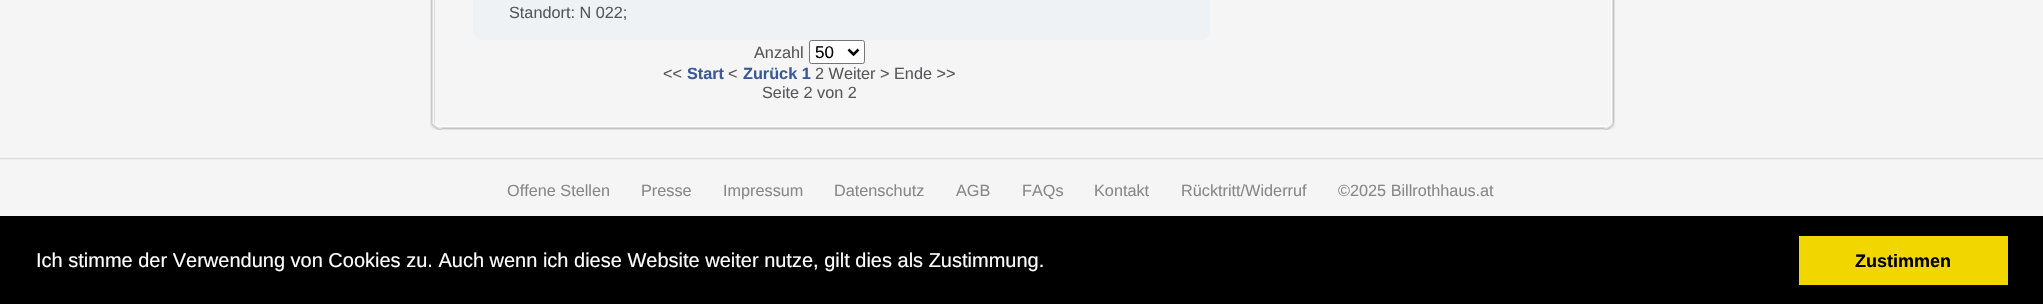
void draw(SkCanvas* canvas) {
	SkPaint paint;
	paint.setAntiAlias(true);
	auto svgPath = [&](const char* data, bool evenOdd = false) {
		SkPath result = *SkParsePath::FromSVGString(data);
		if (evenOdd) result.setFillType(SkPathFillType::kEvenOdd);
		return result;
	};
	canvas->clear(0xfff5f5f5);
	canvas->drawImageRect(SkImages::DeferredFromEncodedData(SkData::MakeFromFileName("img1.png")), SkRect::MakeXYWH(430, 0, 5, 124), SkSamplingOptions());
	canvas->drawImageRect(SkImages::DeferredFromEncodedData(SkData::MakeFromFileName("img2.png")), SkRect::MakeXYWH(1611, 0, 4, 124), SkSamplingOptions());
	paint.setColor(0xffeef2f5);
	canvas->drawRect(SkRect::MakeXYWH(473, 0, 737, 34), paint);
	SkFont f1(fontMgr->matchFamilyStyle("Liberation Sans", SkFontStyle::Normal()), 16.25);
	f1.setSubpixel(true);
	paint.setColor(0xff58585a);
	canvas->drawString("Standort: N 022;", 509, 18, f1, paint);
	canvas->drawImageRect(SkImages::DeferredFromEncodedData(SkData::MakeFromFileName("img3.png")), SkRect::MakeXYWH(474, 34, 5, 5), SkSamplingOptions());
	canvas->drawImageRect(SkImages::DeferredFromEncodedData(SkData::MakeFromFileName("img4.png")), SkRect::MakeXYWH(1204, 34, 5, 5), SkSamplingOptions());
	paint.setColor(0xffeef2f5);
	canvas->drawRect(SkRect::MakeXYWH(479, 34, 725, 6), paint);
	paint.setColor(0xff58585a);
	canvas->drawString("Anzahl", 754, 58, f1, paint);
	paint.setColor(0xffffffff);
	canvas->drawRoundRect(SkRect::MakeXYWH(809.5, 40.5, 55, 23), 2, 2, paint);
	paint.setStroke(true);
	paint.setStrokeWidth(1);
	paint.setColor(0xff767676);
	canvas->drawRoundRect(SkRect::MakeXYWH(809.5, 40.5, 55, 23), 2, 2, paint);
	paint.setStrokeWidth(2.5);
	paint.setColor(0xff000000);
	canvas->drawPath(svgPath("M848.5 49.5L853.5 54.5L858.5 49.5"), paint);
	SkFont f2(fontMgr->matchFamilyStyle("Liberation Sans", SkFontStyle::Normal()), 17);
	f2.setSubpixel(true);
	paint.setStroke(false);
	canvas->drawString("50", 815, 58, f2, paint);
	paint.setColor(0xff58585a);
	canvas->drawString("<<", 663, 79, f1, paint);
	SkFont f3(fontMgr->matchFamilyStyle("Liberation Sans", SkFontStyle::Bold()), 16.25);
	f3.setSubpixel(true);
	paint.setColor(0xff3b5998);
	canvas->drawString("Start", 687, 79, f3, paint);
	paint.setColor(0xff58585a);
	canvas->drawString("<", 728, 79, f1, paint);
	paint.setColor(0xff3b5998);
	canvas->drawString("Zurück 1", 743, 79, f3, paint);
	paint.setColor(0xff58585a);
	canvas->drawString("2 Weiter > Ende >>", 815, 79, f1, paint);
	canvas->drawString("Seite 2 von 2", 762, 98, f1, paint);
	canvas->drawImageRect(SkImages::DeferredFromEncodedData(SkData::MakeFromFileName("img5.png")), SkRect::MakeXYWH(430, 123, 1185, 7), SkSamplingOptions());
	canvas->drawImageRect(SkImages::DeferredFromEncodedData(SkData::MakeFromFileName("img6.png")), SkRect::MakeXYWH(1605, 123, 10, 7), SkSamplingOptions());
	canvas->drawImageRect(SkImages::DeferredFromEncodedData(SkData::MakeFromFileName("img7.png")), SkRect::MakeXYWH(430, 123, 12, 7), SkSamplingOptions());
	canvas->drawImageRect(SkImages::DeferredFromEncodedData(SkData::MakeFromFileName("img8.png")), SkRect::MakeXYWH(0, 156, 2043, 4), SkSamplingOptions());
	paint.setColor(0xff888888);
	canvas->drawString("Offene Stellen", 507, 196, f1, paint);
	canvas->drawString("Presse", 641, 196, f1, paint);
	canvas->drawString("Impressum", 723, 196, f1, paint);
	canvas->drawString("Datenschutz", 834, 196, f1, paint);
	canvas->drawString("AGB", 956, 196, f1, paint);
	canvas->drawString("FAQs", 1022, 196, f1, paint);
	canvas->drawString("Kontakt", 1094, 196, f1, paint);
	canvas->drawString("Rücktritt/Widerruf", 1181, 196, f1, paint);
	canvas->drawString("©2025 Billrothhaus.at", 1338, 196, f1, paint);
	paint.setColor(0xff000000);
	canvas->drawRect(SkRect::MakeXYWH(0, 216, 2043, 88), paint);
	SkFont f4(fontMgr->matchFamilyStyle("Liberation Sans", SkFontStyle::Normal()), 20);
	f4.setSubpixel(true);
	paint.setColor(0xffffffff);
	canvas->drawString("Ich stimme der Verwendung von Cookies zu. Auch wenn ich diese Website weiter nutze, gilt dies als Zustimmung.", 36, 267, f4, paint);
	paint.setColor(0xfff1d600);
	canvas->drawRect(SkRect::MakeXYWH(1799, 236, 209, 49), paint);
	SkFont f5(fontMgr->matchFamilyStyle("Liberation Sans", SkFontStyle::Bold()), 18);
	f5.setSubpixel(true);
	paint.setColor(0xff000000);
	canvas->drawString("Zustimmen", 1855, 267, f5, paint);
}
